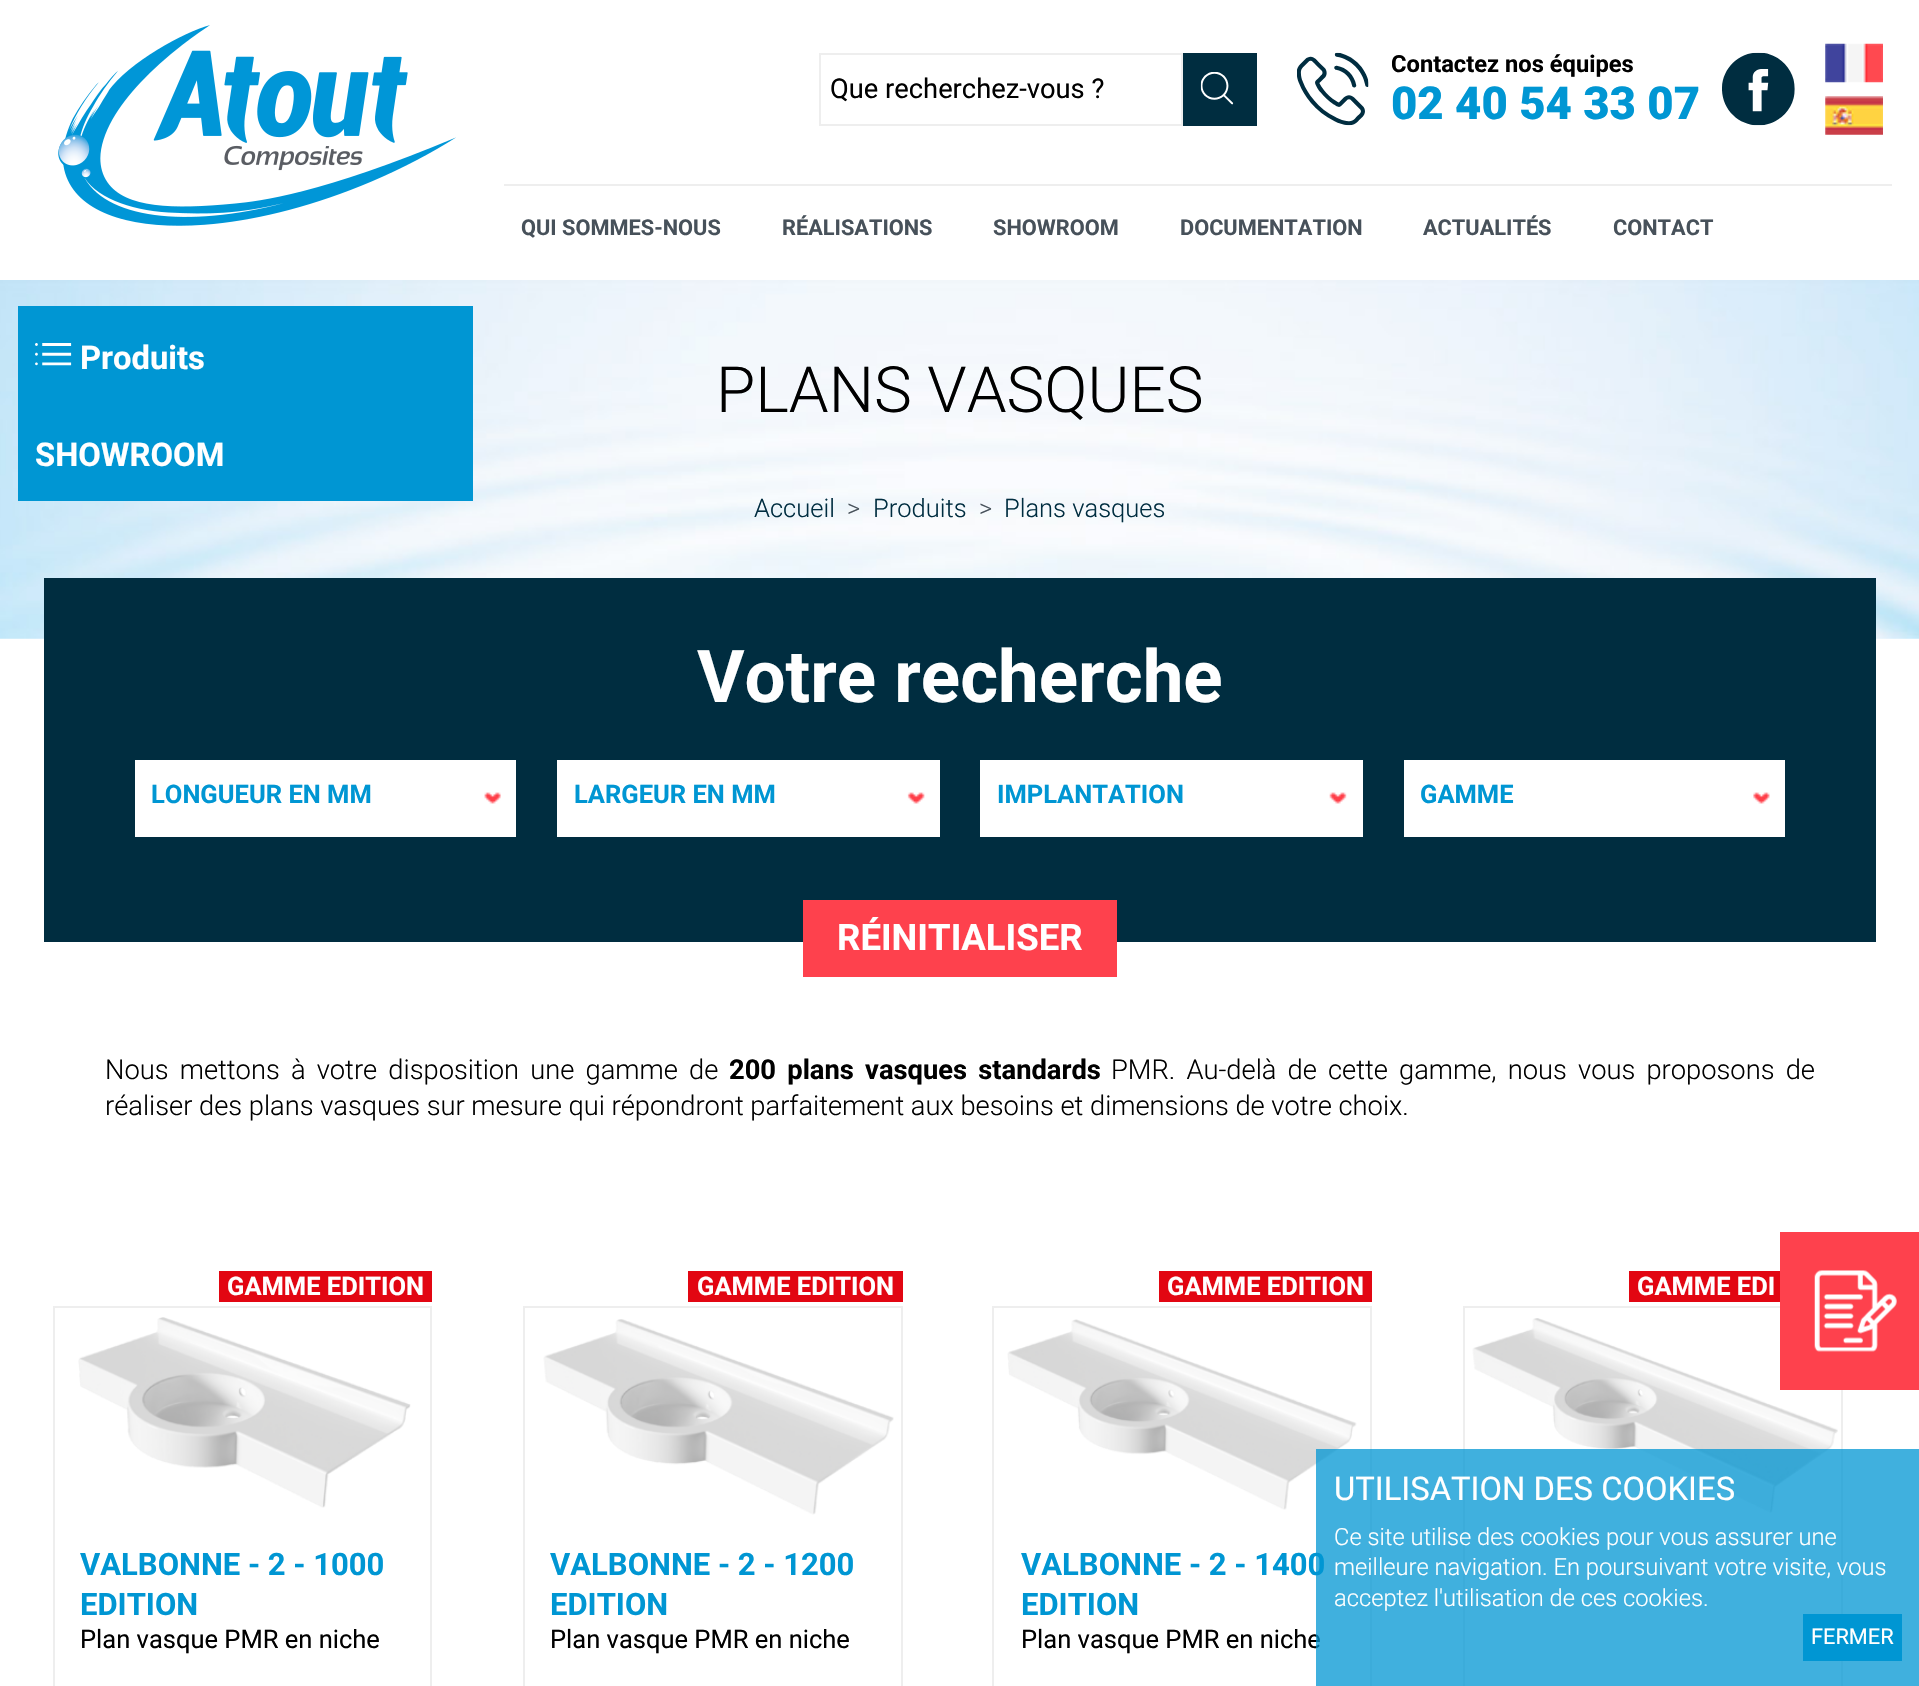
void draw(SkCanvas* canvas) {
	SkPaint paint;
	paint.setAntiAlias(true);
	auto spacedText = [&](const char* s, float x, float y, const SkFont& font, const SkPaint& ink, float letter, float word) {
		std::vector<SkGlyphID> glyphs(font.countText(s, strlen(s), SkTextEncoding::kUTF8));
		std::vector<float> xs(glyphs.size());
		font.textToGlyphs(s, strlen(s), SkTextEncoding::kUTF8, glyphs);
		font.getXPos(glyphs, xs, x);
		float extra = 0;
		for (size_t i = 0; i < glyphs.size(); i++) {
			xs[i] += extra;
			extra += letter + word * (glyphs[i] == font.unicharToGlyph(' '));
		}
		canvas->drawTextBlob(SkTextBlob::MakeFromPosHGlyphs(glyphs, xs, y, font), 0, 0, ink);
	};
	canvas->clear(0xffffffff);
	canvas->drawImageRect(SkImages::DeferredFromEncodedData(SkData::MakeFromFileName("img1.png")), SkRect::MakeXYWH(58, 25, 398, 201), SkSamplingOptions());
	paint.setStroke(true);
	paint.setStrokeWidth(2);
	paint.setColor(0xffeeeeee);
	canvas->drawRect(SkRect::MakeXYWH(820, 54, 362, 71), paint);
	SkFont f1(fontMgr->matchFamilyStyle("Roboto", SkFontStyle::Normal()), 27.3);
	f1.setSubpixel(true);
	paint.setStroke(false);
	paint.setColor(0xff000000);
	canvas->drawString("Que recherchez-vous ?", 830, 98, f1, paint);
	paint.setColor(0xff002d40);
	canvas->drawRect(SkRect::MakeXYWH(1183, 53, 74, 73), paint);
	canvas->drawImageRect(SkImages::DeferredFromEncodedData(SkData::MakeFromFileName("img2.png")), SkRect::MakeXYWH(1200, 72, 34, 33), SkSamplingOptions());
	canvas->drawImageRect(SkImages::DeferredFromEncodedData(SkData::MakeFromFileName("img3.png")), SkRect::MakeXYWH(1297, 52, 72, 74), SkSamplingOptions());
	SkFont f2(fontMgr->matchFamilyStyle("Roboto", SkFontStyle::Bold()), 23.7);
	f2.setSubpixel(true);
	paint.setColor(0xff000000);
	canvas->drawString("Contactez nos équipes", 1391, 72, f2, paint);
	SkFont f3(fontMgr->matchFamilyStyle("Roboto", SkFontStyle(900, SkFontStyle::kNormal_Width, SkFontStyle::kUpright_Slant)), 45.5);
	f3.setSubpixel(true);
	paint.setColor(0xff0096d3);
	canvas->drawString("02 40 54 33 07", 1391, 119, f3, paint);
	canvas->drawImageRect(SkImages::DeferredFromEncodedData(SkData::MakeFromFileName("img4.png")), SkRect::MakeXYWH(1722, 52, 73, 74), SkSamplingOptions());
	canvas->drawImageRect(SkImages::DeferredFromEncodedData(SkData::MakeFromFileName("img5.png")), SkRect::MakeXYWH(1825, 43, 58, 40), SkSamplingOptions());
	canvas->drawImageRect(SkImages::DeferredFromEncodedData(SkData::MakeFromFileName("img6.png")), SkRect::MakeXYWH(1825, 96, 58, 39), SkSamplingOptions());
	paint.setColor(0xffeeeeee);
	canvas->drawRect(SkRect::MakeXYWH(504, 184, 1388, 2), paint);
	SkFont f4(fontMgr->matchFamilyStyle("Roboto", SkFontStyle::Bold()), 21.75);
	f4.setSubpixel(true);
	paint.setColor(0xff47515a);
	canvas->drawString("QUI SOMMES-NOUS", 521, 235, f4, paint);
	canvas->drawString("RÉALISATIONS", 782, 235, f4, paint);
	canvas->drawString("SHOWROOM", 993, 235, f4, paint);
	canvas->drawString("DOCUMENTATION", 1180, 235, f4, paint);
	canvas->drawString("ACTUALITÉS", 1423, 235, f4, paint);
	canvas->drawString("CONTACT", 1613, 235, f4, paint);
	canvas->drawImageRect(SkImages::DeferredFromEncodedData(SkData::MakeFromFileName("img8.png")), SkRect::MakeXYWH(0, 280, 1919, 359), SkSamplingOptions());
	paint.setColor(0xff0096d3);
	canvas->drawRect(SkRect::MakeXYWH(18, 306, 455, 195), paint);
	canvas->drawImageRect(SkImages::DeferredFromEncodedData(SkData::MakeFromFileName("img7.png")), SkRect::MakeXYWH(35, 343, 37, 23), SkSamplingOptions());
	SkFont f5(fontMgr->matchFamilyStyle("Roboto", SkFontStyle::Bold()), 32.75);
	f5.setSubpixel(true);
	paint.setColor(0xffffffff);
	canvas->drawString("Produits", 80, 369, f5, paint);
	canvas->drawString("SHOWROOM", 35, 466, f5, paint);
	SkFont f6(fontMgr->matchFamilyStyle("Roboto", SkFontStyle(300, SkFontStyle::kNormal_Width, SkFontStyle::kUpright_Slant)), 63.75);
	f6.setSubpixel(true);
	paint.setColor(0xff000000);
	canvas->drawString("PLANS VASQUES", 716, 412, f6, paint);
	SkFont f7(fontMgr->matchFamilyStyle("Roboto", SkFontStyle(300, SkFontStyle::kNormal_Width, SkFontStyle::kUpright_Slant)), 25.5);
	f7.setSubpixel(true);
	paint.setColor(0xff002d40);
	canvas->drawString("Accueil", 754, 517, f7, paint);
	paint.setColor(0xff47515a);
	canvas->drawString(">", 847, 517, f7, paint);
	paint.setColor(0xff002d40);
	canvas->drawString("Produits", 873, 517, f7, paint);
	paint.setColor(0xff47515a);
	canvas->drawString(">", 979, 517, f7, paint);
	paint.setColor(0xff002d40);
	canvas->drawString("Plans vasques", 1004, 517, f7, paint);
	SkFont f8(fontMgr->matchFamilyStyle("Roboto", SkFontStyle(300, SkFontStyle::kNormal_Width, SkFontStyle::kUpright_Slant)), 27.3);
	f8.setSubpixel(true);
	paint.setColor(0xff000000);
	spacedText("Nous mettons à votre disposition une gamme de", 105, 1079, f8, paint, 0, 4.5);
	SkFont f9(fontMgr->matchFamilyStyle("Roboto", SkFontStyle::Bold()), 27.3);
	f9.setSubpixel(true);
	spacedText("200 plans vasques standards", 729, 1079, f9, paint, 0, 4.5);
	spacedText("PMR. Au-delà de cette gamme, nous vous proposons de", 1111, 1079, f8, paint, 0, 4.5);
	canvas->drawString("réaliser des plans vasques sur mesure qui répondront parfaitement aux besoins et dimensions de votre choix.", 105, 1115, f8, paint);
	paint.setColor(0xffe20612);
	canvas->drawRect(SkRect::MakeXYWH(219, 1271, 213, 31), paint);
	SkFont f10(fontMgr->matchFamilyStyle("Roboto", SkFontStyle::Bold()), 25.5);
	f10.setSubpixel(true);
	paint.setColor(0xffffffff);
	canvas->drawString("GAMME EDITION", 227, 1295, f10, paint);
	paint.setStroke(true);
	paint.setColor(0xffeeeeee);
	canvas->drawRect(SkRect::MakeXYWH(54, 1307, 377, 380), paint);
	canvas->drawImageRect(SkImages::DeferredFromEncodedData(SkData::MakeFromFileName("img9.png")), SkRect::MakeXYWH(78, 1317, 333, 191), SkSamplingOptions());
	SkFont f11(fontMgr->matchFamilyStyle("Roboto", SkFontStyle::Bold()), 31);
	f11.setSubpixel(true);
	paint.setStroke(false);
	paint.setColor(0xff0096d3);
	canvas->drawString("VALBONNE - 2 - 1000", 80, 1575, f11, paint);
	canvas->drawString("EDITION", 80, 1615, f11, paint);
	SkFont f12(fontMgr->matchFamilyStyle("Roboto", SkFontStyle::Normal()), 25.5);
	f12.setSubpixel(true);
	paint.setColor(0xff000000);
	canvas->drawString("Plan vasque PMR en niche", 80, 1648, f12, paint);
	paint.setColor(0xffe20612);
	canvas->drawRect(SkRect::MakeXYWH(688, 1271, 215, 31), paint);
	paint.setColor(0xffffffff);
	canvas->drawString("GAMME EDITION", 697, 1295, f10, paint);
	paint.setStroke(true);
	paint.setColor(0xffeeeeee);
	canvas->drawRect(SkRect::MakeXYWH(524, 1307, 378, 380), paint);
	canvas->drawImageRect(SkImages::DeferredFromEncodedData(SkData::MakeFromFileName("img10.png")), SkRect::MakeXYWH(543, 1319, 351, 196), SkSamplingOptions());
	paint.setStroke(false);
	paint.setColor(0xff0096d3);
	canvas->drawString("VALBONNE - 2 - 1200", 550, 1575, f11, paint);
	canvas->drawString("EDITION", 550, 1615, f11, paint);
	paint.setColor(0xff000000);
	canvas->drawString("Plan vasque PMR en niche", 550, 1648, f12, paint);
	paint.setColor(0xffe20612);
	canvas->drawRect(SkRect::MakeXYWH(1159, 1271, 213, 31), paint);
	paint.setColor(0xffffffff);
	canvas->drawString("GAMME EDITION", 1167, 1295, f10, paint);
	paint.setStroke(true);
	paint.setColor(0xffeeeeee);
	canvas->drawRect(SkRect::MakeXYWH(993, 1307, 378, 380), paint);
	canvas->drawImageRect(SkImages::DeferredFromEncodedData(SkData::MakeFromFileName("img11.png")), SkRect::MakeXYWH(1007, 1319, 350, 191), SkSamplingOptions());
	paint.setStroke(false);
	paint.setColor(0xff0096d3);
	canvas->drawString("VALBONNE - 2 - 1400", 1021, 1575, f11, paint);
	canvas->drawString("EDITION", 1021, 1615, f11, paint);
	paint.setColor(0xff000000);
	canvas->drawString("Plan vasque PMR en niche", 1021, 1648, f12, paint);
	paint.setColor(0xffe20612);
	canvas->drawRect(SkRect::MakeXYWH(1629, 1271, 151, 31), paint);
	paint.setColor(0xffffffff);
	canvas->drawString("GAMME EDI", 1637, 1295, f10, paint);
	paint.setStroke(true);
	paint.setColor(0xffeeeeee);
	canvas->drawRect(SkRect::MakeXYWH(1464, 1307, 378, 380), paint);
	canvas->drawImageRect(SkImages::DeferredFromEncodedData(SkData::MakeFromFileName("img12.png")), SkRect::MakeXYWH(1472, 1318, 366, 195), SkSamplingOptions());
	paint.setStroke(false);
	paint.setColor(0xff002d40);
	canvas->drawRect(SkRect::MakeXYWH(44, 578, 1832, 364), paint);
	SkFont f13(fontMgr->matchFamilyStyle("Roboto", SkFontStyle::Bold()), 72.75);
	f13.setSubpixel(true);
	paint.setColor(0xffffffff);
	canvas->drawString("Votre recherche", 697, 702, f13, paint);
	canvas->drawRect(SkRect::MakeXYWH(135, 760, 381, 77), paint);
	canvas->drawImageRect(SkImages::DeferredFromEncodedData(SkData::MakeFromFileName("img13.png")), SkRect::MakeXYWH(484, 792, 17, 12), SkSamplingOptions());
	paint.setColor(0xff0096d3);
	canvas->drawString("LONGUEUR EN MM", 151, 803, f10, paint);
	paint.setColor(0xffffffff);
	canvas->drawRect(SkRect::MakeXYWH(557, 760, 383, 77), paint);
	canvas->drawImageRect(SkImages::DeferredFromEncodedData(SkData::MakeFromFileName("img14.png")), SkRect::MakeXYWH(907, 792, 18, 12), SkSamplingOptions());
	paint.setColor(0xff0096d3);
	canvas->drawString("LARGEUR EN MM", 574, 803, f10, paint);
	paint.setColor(0xffffffff);
	canvas->drawRect(SkRect::MakeXYWH(980, 760, 383, 77), paint);
	canvas->drawImageRect(SkImages::DeferredFromEncodedData(SkData::MakeFromFileName("img15.png")), SkRect::MakeXYWH(1329, 792, 18, 12), SkSamplingOptions());
	paint.setColor(0xff0096d3);
	canvas->drawString("IMPLANTATION", 997, 803, f10, paint);
	paint.setColor(0xffffffff);
	canvas->drawRect(SkRect::MakeXYWH(1404, 760, 381, 77), paint);
	canvas->drawImageRect(SkImages::DeferredFromEncodedData(SkData::MakeFromFileName("img16.png")), SkRect::MakeXYWH(1753, 792, 17, 12), SkSamplingOptions());
	paint.setColor(0xff0096d3);
	canvas->drawString("GAMME", 1420, 803, f10, paint);
	paint.setColor(0xfffe414d);
	canvas->drawRect(SkRect::MakeXYWH(803, 900, 314, 77), paint);
	SkFont f14(fontMgr->matchFamilyStyle("Roboto", SkFontStyle::Bold()), 36.5);
	f14.setSubpixel(true);
	paint.setColor(0xffffffff);
	canvas->drawString("RÉINITIALISER", 837, 950, f14, paint);
	paint.setColor(0xfffe414d);
	canvas->drawRect(SkRect::MakeXYWH(1780, 1232, 139, 158), paint);
	canvas->drawImageRect(SkImages::DeferredFromEncodedData(SkData::MakeFromFileName("img17.png")), SkRect::MakeXYWH(1814, 1270, 83, 82), SkSamplingOptions());
	paint.setColor(0xbf0096d3);
	canvas->drawRect(SkRect::MakeXYWH(1316, 1449, 603, 237), paint);
	SkFont f15(fontMgr->matchFamilyStyle("Roboto", SkFontStyle::Normal()), 32.75);
	f15.setSubpixel(true);
	paint.setColor(0xffffffff);
	canvas->drawString("UTILISATION DES COOKIES", 1334, 1500, f15, paint);
	SkFont f16(fontMgr->matchFamilyStyle("Roboto", SkFontStyle(300, SkFontStyle::kNormal_Width, SkFontStyle::kUpright_Slant)), 23.7);
	f16.setSubpixel(true);
	canvas->drawString("Ce site utilise des cookies pour vous assurer une", 1334, 1545, f16, paint);
	canvas->drawString("meilleure navigation. En poursuivant votre visite, vous", 1334, 1575, f16, paint);
	canvas->drawString("acceptez l'utilisation de ces cookies.", 1334, 1606, f16, paint);
	paint.setColor(0xff0096d3);
	canvas->drawRect(SkRect::MakeXYWH(1803, 1614, 99, 47), paint);
	SkFont f17(fontMgr->matchFamilyStyle("Roboto", SkFontStyle::Normal()), 21.75);
	f17.setSubpixel(true);
	paint.setColor(0xffffffff);
	canvas->drawString("FERMER", 1811, 1644, f17, paint);
}
